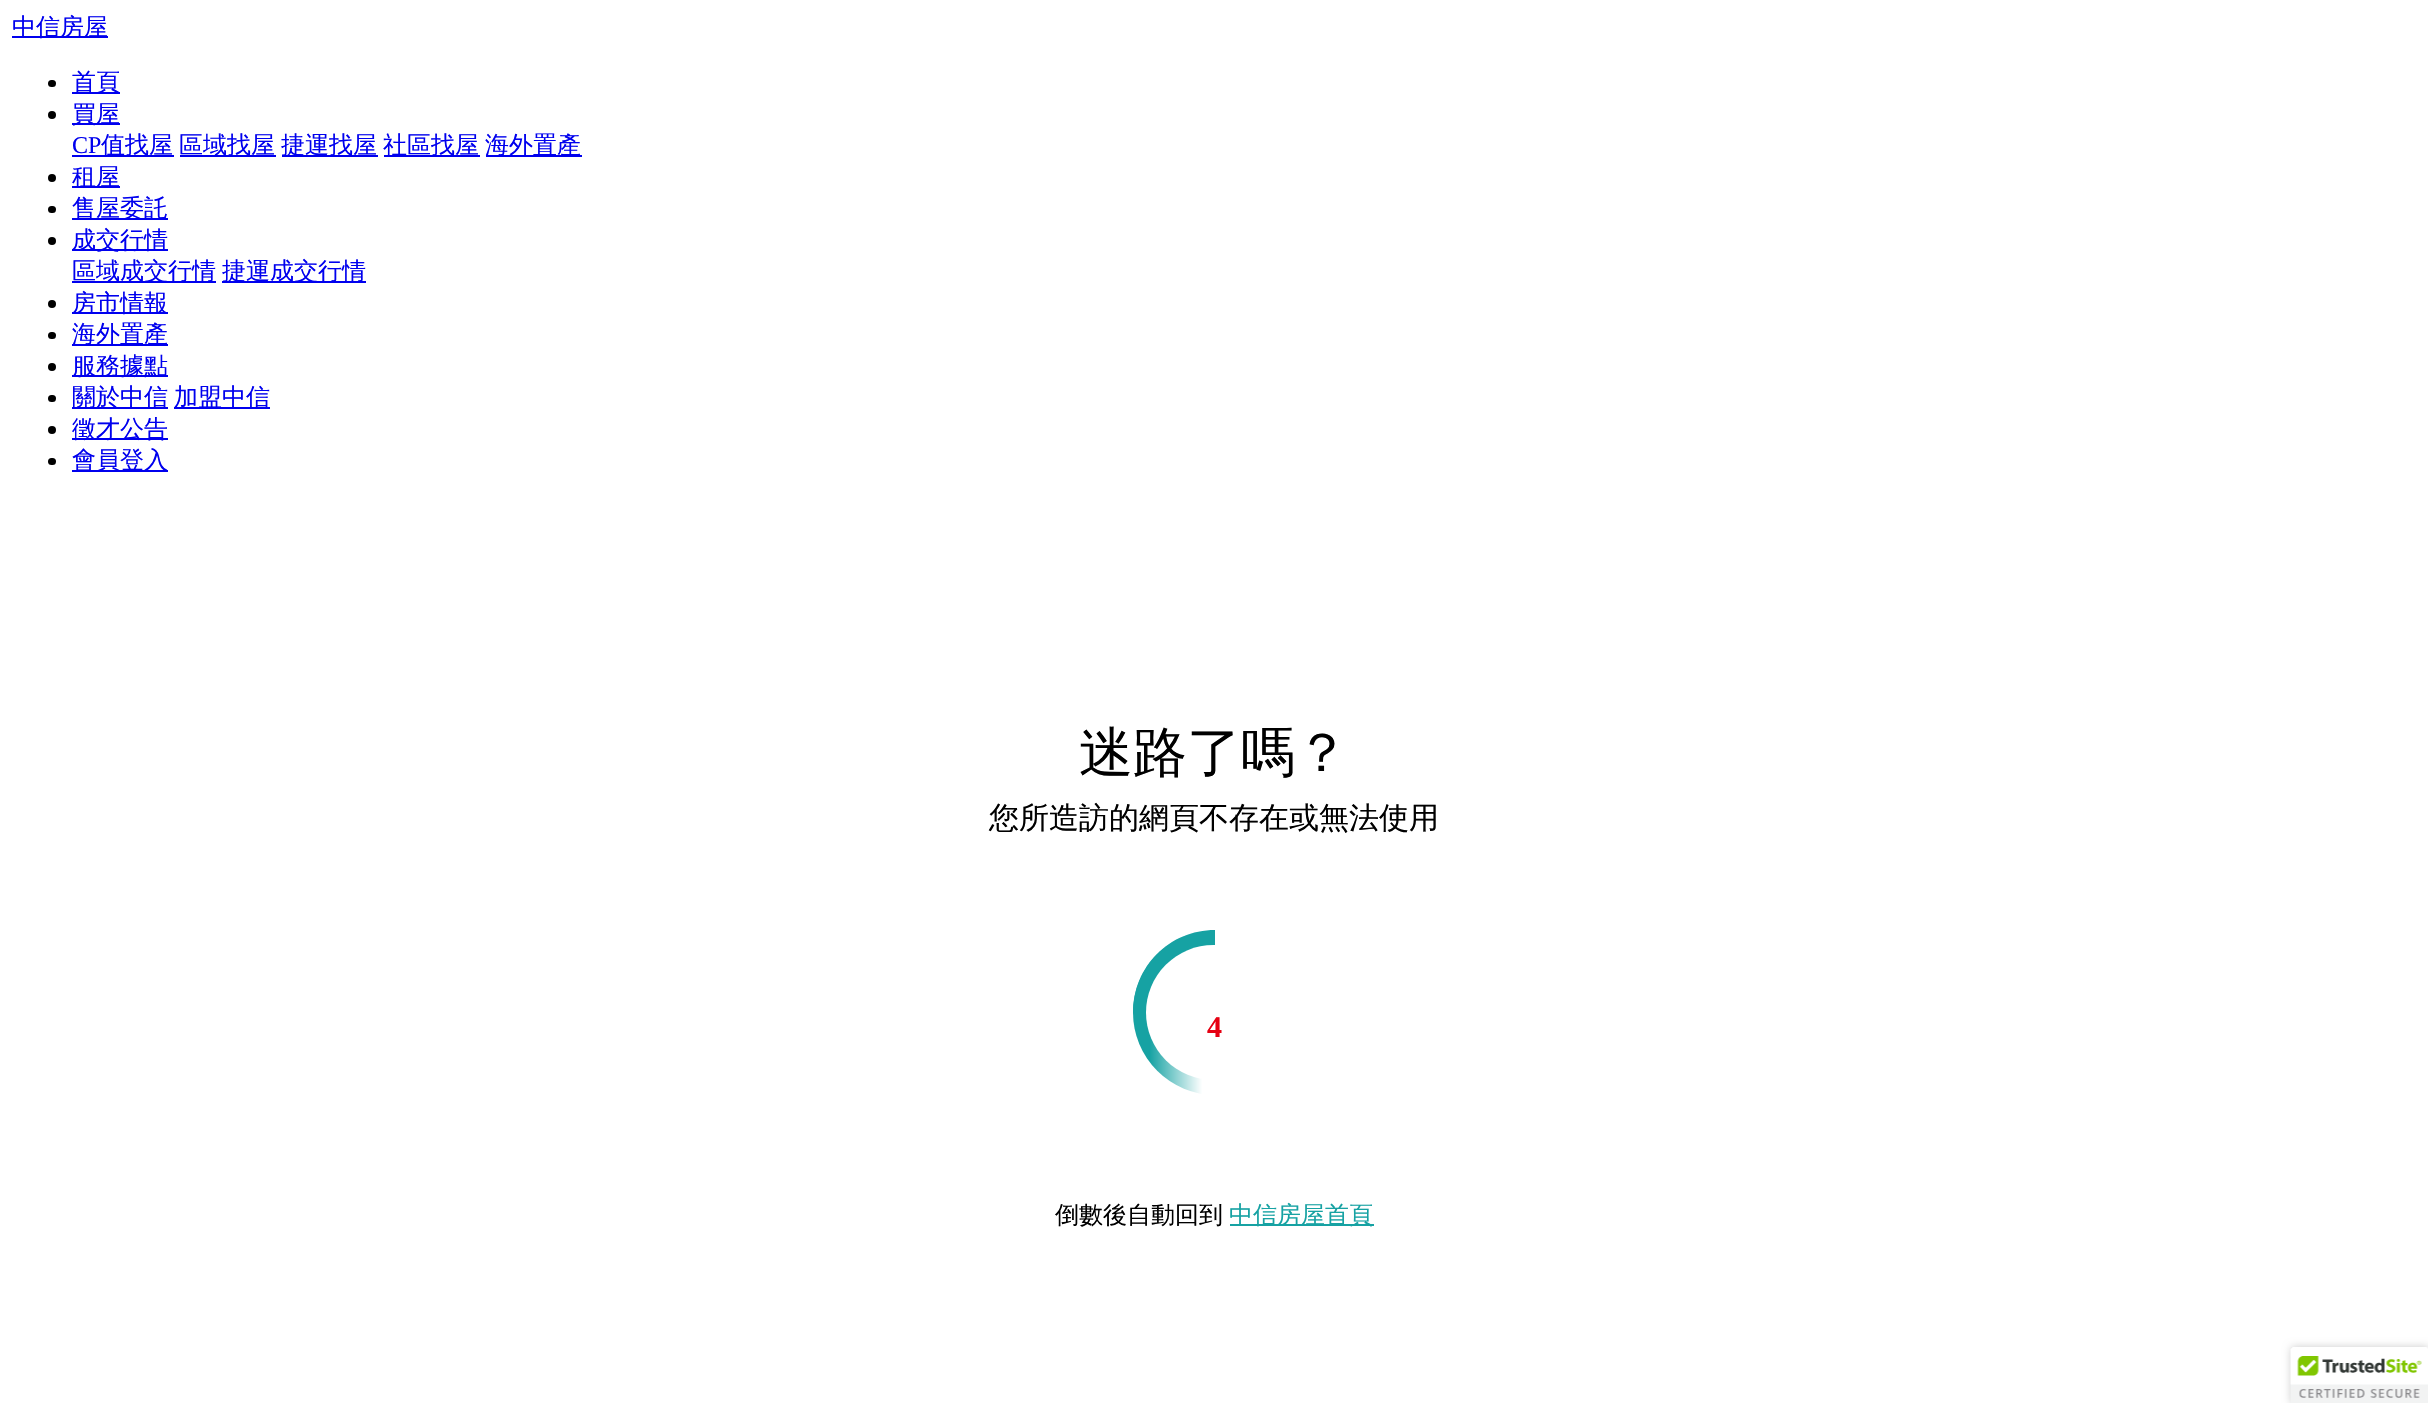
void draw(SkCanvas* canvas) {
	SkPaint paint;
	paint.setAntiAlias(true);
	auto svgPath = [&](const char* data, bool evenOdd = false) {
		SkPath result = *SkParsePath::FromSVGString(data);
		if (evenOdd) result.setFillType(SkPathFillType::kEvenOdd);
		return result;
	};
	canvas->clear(0xffffffff);
	paint.setColor(0xff0000ee);
	canvas->drawRect(SkRect::MakeXYWH(12, 36, 96, 2), paint);
	SkFont f1(fontMgr->matchFamilyStyle("WenQuanYi Zen Hei", SkFontStyle(500, SkFontStyle::kNormal_Width, SkFontStyle::kUpright_Slant)), 24);
	f1.setSubpixel(true);
	canvas->drawString("中信房屋", 12, 35, f1, paint);
	paint.setColor(0xff000000);
	canvas->drawRoundRect(SkRect::MakeXYWH(48, 80, 8, 7), 3.5, 3.5, paint);
	paint.setColor(0xff0000ee);
	canvas->drawRect(SkRect::MakeXYWH(72, 92, 48, 2), paint);
	canvas->drawString("首頁", 72, 90, f1, paint);
	paint.setColor(0xff000000);
	canvas->drawCircle(52, 115, 4, paint);
	paint.setColor(0xff0000ee);
	canvas->drawRect(SkRect::MakeXYWH(72, 123, 48, 2), paint);
	canvas->drawString("買屋", 72, 122, f1, paint);
	SkFont f2(fontMgr->matchFamilyStyle("Liberation Serif", SkFontStyle::Normal()), 24);
	f2.setSubpixel(true);
	canvas->drawString("CP", 72, 153, f2, paint);
	canvas->drawRect(SkRect::MakeXYWH(72, 155, 102, 2), paint);
	canvas->drawString("值找屋", 101, 153, f1, paint);
	canvas->drawRect(SkRect::MakeXYWH(180, 155, 96, 2), paint);
	canvas->drawString("區域找屋", 179, 153, f1, paint);
	canvas->drawRect(SkRect::MakeXYWH(282, 155, 96, 2), paint);
	canvas->drawString("捷運找屋", 281, 153, f1, paint);
	canvas->drawRect(SkRect::MakeXYWH(384, 155, 96, 2), paint);
	canvas->drawString("社區找屋", 383, 153, f1, paint);
	canvas->drawRect(SkRect::MakeXYWH(486, 155, 96, 2), paint);
	canvas->drawString("海外置產", 485, 153, f1, paint);
	paint.setColor(0xff000000);
	canvas->drawCircle(52, 178, 4, paint);
	paint.setColor(0xff0000ee);
	canvas->drawRect(SkRect::MakeXYWH(72, 186, 48, 2), paint);
	canvas->drawString("租屋", 72, 185, f1, paint);
	paint.setColor(0xff000000);
	canvas->drawRoundRect(SkRect::MakeXYWH(48, 206, 8, 7), 3.5, 3.5, paint);
	paint.setColor(0xff0000ee);
	canvas->drawRect(SkRect::MakeXYWH(72, 218, 96, 2), paint);
	canvas->drawString("售屋委託", 72, 216, f1, paint);
	paint.setColor(0xff000000);
	canvas->drawCircle(52, 241, 4, paint);
	paint.setColor(0xff0000ee);
	canvas->drawRect(SkRect::MakeXYWH(72, 249, 96, 2), paint);
	canvas->drawString("成交行情", 72, 248, f1, paint);
	canvas->drawRect(SkRect::MakeXYWH(72, 281, 144, 2), paint);
	canvas->drawString("區域成交行情", 72, 279, f1, paint);
	canvas->drawRect(SkRect::MakeXYWH(222, 281, 144, 2), paint);
	canvas->drawString("捷運成交行情", 222, 279, f1, paint);
	paint.setColor(0xff000000);
	canvas->drawCircle(52, 304, 4, paint);
	paint.setColor(0xff0000ee);
	canvas->drawRect(SkRect::MakeXYWH(72, 312, 96, 2), paint);
	canvas->drawString("房市情報", 72, 311, f1, paint);
	paint.setColor(0xff000000);
	canvas->drawRoundRect(SkRect::MakeXYWH(48, 332, 8, 7), 3.5, 3.5, paint);
	paint.setColor(0xff0000ee);
	canvas->drawRect(SkRect::MakeXYWH(72, 344, 96, 2), paint);
	canvas->drawString("海外置產", 72, 342, f1, paint);
	paint.setColor(0xff000000);
	canvas->drawCircle(52, 367, 4, paint);
	paint.setColor(0xff0000ee);
	canvas->drawRect(SkRect::MakeXYWH(72, 375, 96, 2), paint);
	canvas->drawString("服務據點", 72, 374, f1, paint);
	paint.setColor(0xff000000);
	canvas->drawRoundRect(SkRect::MakeXYWH(48, 395, 8, 7), 3.5, 3.5, paint);
	paint.setColor(0xff0000ee);
	canvas->drawRect(SkRect::MakeXYWH(72, 407, 96, 2), paint);
	canvas->drawString("關於中信", 72, 405, f1, paint);
	canvas->drawRect(SkRect::MakeXYWH(174, 407, 96, 2), paint);
	canvas->drawString("加盟中信", 174, 405, f1, paint);
	paint.setColor(0xff000000);
	canvas->drawCircle(52, 430, 4, paint);
	paint.setColor(0xff0000ee);
	canvas->drawRect(SkRect::MakeXYWH(72, 438, 96, 2), paint);
	canvas->drawString("徵才公告", 72, 437, f1, paint);
	paint.setColor(0xff000000);
	canvas->drawRoundRect(SkRect::MakeXYWH(48, 458, 8, 7), 3.5, 3.5, paint);
	paint.setColor(0xff0000ee);
	canvas->drawRect(SkRect::MakeXYWH(72, 470, 96, 2), paint);
	canvas->drawString("會員登入", 72, 468, f1, paint);
	SkFont f3(fontMgr->matchFamilyStyle("WenQuanYi Zen Hei", SkFontStyle(500, SkFontStyle::kNormal_Width, SkFontStyle::kUpright_Slant)), 54);
	f3.setSubpixel(true);
	paint.setColor(0xff000000);
	canvas->drawString("迷路了嗎？", 1079, 771, f3, paint);
	SkFont f4(fontMgr->matchFamilyStyle("WenQuanYi Zen Hei", SkFontStyle(500, SkFontStyle::kNormal_Width, SkFontStyle::kUpright_Slant)), 30);
	f4.setSubpixel(true);
	canvas->drawString("您所造訪的網頁不存在或無法使用", 989, 828, f4, paint);
	{
		const SkColor colors[] = {0xff16a2a3, 0xffffffff};
		const float stops[] = {0.1, 0.42};
		const SkPoint ends[] = {{1133, 1013}, {1298, 1013}};
		paint.setShader(SkGradientShader::MakeLinear(ends, colors, stops, 2, SkTileMode::kClamp));
		paint.setAlpha(255);
	}
	canvas->drawCircle(1215.5, 1012.5, 82.5, paint);
	paint.setShader(nullptr);
	paint.setColor(0xff16a2a3);
	canvas->drawPath(svgPath("M1215 930V1013H1133V1012C1133 966.5 1169.5 930 1215 930Z"), paint);
	paint.setColor(0xffffffff);
	canvas->drawRoundRect(SkRect::MakeXYWH(1146, 945, 137, 135), 67.5, 67.5, paint);
	SkFont f5(fontMgr->matchFamilyStyle("Liberation Serif", SkFontStyle::Bold()), 30);
	f5.setSubpixel(true);
	paint.setColor(0xffe60012);
	canvas->drawString("4", 1207, 1037, f5, paint);
	paint.setColor(0xff000000);
	canvas->drawString("倒數後自動回到", 1055, 1223, f1, paint);
	paint.setColor(0xff16a2a3);
	canvas->drawRect(SkRect::MakeXYWH(1230, 1224, 144, 2), paint);
	canvas->drawString("中信房屋首頁", 1229, 1223, f1, paint);
	paint.setColor(0x33000000);
	paint.setMaskFilter(SkMaskFilter::MakeBlur(kNormal_SkBlurStyle, 4));
	canvas->drawRoundRect(SkRect::MakeXYWH(2291, 1347, 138, 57), 3, 3, paint);
	paint.setMaskFilter(nullptr);
	paint.setColor(0xffffffff);
	canvas->drawPath(svgPath("M2294 1347H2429V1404H2291V1350C2291 1348.5 2292.5 1347 2294 1347Z"), paint);
	canvas->drawImageRect(SkImages::DeferredFromEncodedData(SkData::MakeFromFileName("img1.png")), SkRect::MakeXYWH(2290, 1347, 138, 56), SkSamplingOptions());
}
